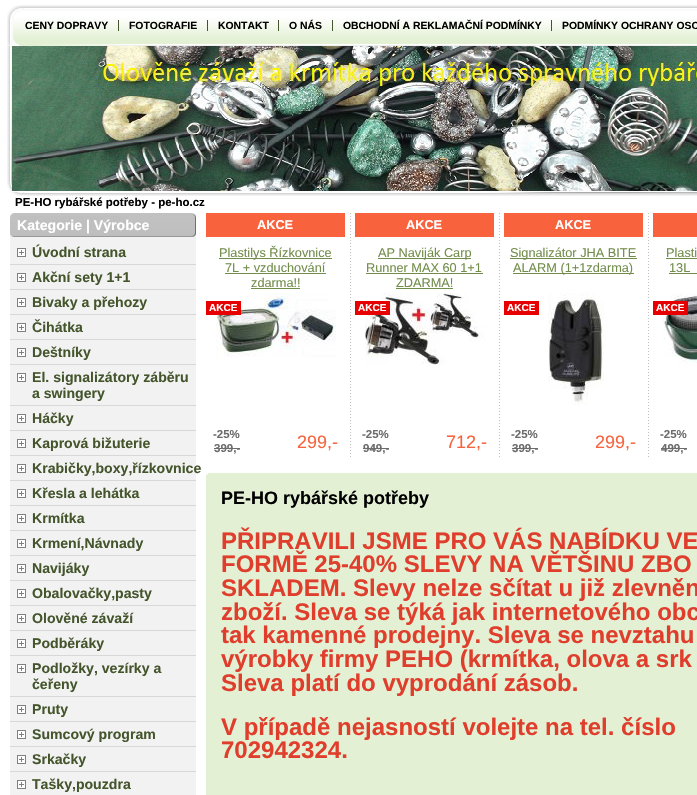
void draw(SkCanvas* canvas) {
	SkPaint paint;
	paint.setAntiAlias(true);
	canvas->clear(0xffffffff);
	canvas->drawImageRect(SkImages::DeferredFromEncodedData(SkData::MakeFromFileName("img1.png")), SkRect::MakeXYWH(7, 5, 690, 41), SkSamplingOptions());
	paint.setColor(0xff44552c);
	canvas->drawRect(SkRect::MakeXYWH(118, 20, 1, 11), paint);
	SkFont f1(fontMgr->matchFamilyStyle("Liberation Sans", SkFontStyle::Bold()), 10.4);
	f1.setSubpixel(true);
	paint.setColor(0xff000000);
	canvas->drawString("CENY DOPRAVY", 25, 29, f1, paint);
	paint.setColor(0xff44552c);
	canvas->drawRect(SkRect::MakeXYWH(207, 20, 1, 11), paint);
	paint.setColor(0xff000000);
	canvas->drawString("FOTOGRAFIE", 129, 29, f1, paint);
	paint.setColor(0xff44552c);
	canvas->drawRect(SkRect::MakeXYWH(278, 20, 1, 11), paint);
	paint.setColor(0xff000000);
	canvas->drawString("KONTAKT", 218, 29, f1, paint);
	paint.setColor(0xff44552c);
	canvas->drawRect(SkRect::MakeXYWH(332, 20, 1, 11), paint);
	paint.setColor(0xff000000);
	canvas->drawString("O NÁS", 289, 29, f1, paint);
	paint.setColor(0xff44552c);
	canvas->drawRect(SkRect::MakeXYWH(551, 20, 1, 11), paint);
	paint.setColor(0xff000000);
	canvas->drawString("OBCHODNÍ A REKLAMAČNÍ PODMÍNKY", 343, 29, f1, paint);
	canvas->drawString("PODMÍNKY OCHRANY OSO", 562, 29, f1, paint);
	canvas->drawImageRect(SkImages::DeferredFromEncodedData(SkData::MakeFromFileName("img2.png")), SkRect::MakeXYWH(11, 192, 686, 4), SkSamplingOptions());
	canvas->drawImageRect(SkImages::DeferredFromEncodedData(SkData::MakeFromFileName("img3.png")), SkRect::MakeXYWH(7, 46, 5, 146), SkSamplingOptions());
	canvas->drawImageRect(SkImages::DeferredFromEncodedData(SkData::MakeFromFileName("img4.png")), SkRect::MakeXYWH(12, 46, 685, 145), SkSamplingOptions());
	canvas->drawImageRect(SkImages::DeferredFromEncodedData(SkData::MakeFromFileName("img5.png")), SkRect::MakeXYWH(10, 213, 186, 24), SkSamplingOptions());
	SkFont f2(fontMgr->matchFamilyStyle("Liberation Sans", SkFontStyle::Bold()), 14.1);
	f2.setSubpixel(true);
	paint.setColor(0xffffffff);
	canvas->drawString("Kategorie | Výrobce", 17, 230, f2, paint);
	paint.setColor(0xfff2f2f2);
	canvas->drawRect(SkRect::MakeXYWH(10, 237, 186, 558), paint);
	canvas->drawImageRect(SkImages::DeferredFromEncodedData(SkData::MakeFromFileName("img6.png")), SkRect::MakeXYWH(17, 248, 9, 9), SkSamplingOptions());
	paint.setColor(0xffd8d8d8);
	canvas->drawRect(SkRect::MakeXYWH(10, 264, 186, 1), paint);
	paint.setColor(0xff44552c);
	canvas->drawString("Úvodní strana", 32, 257, f2, paint);
	canvas->drawImageRect(SkImages::DeferredFromEncodedData(SkData::MakeFromFileName("img6.png")), SkRect::MakeXYWH(17, 273, 9, 9), SkSamplingOptions());
	paint.setColor(0xffd8d8d8);
	canvas->drawRect(SkRect::MakeXYWH(10, 289, 186, 1), paint);
	paint.setColor(0xff44552c);
	canvas->drawString("Akční sety 1+1", 32, 282, f2, paint);
	canvas->drawImageRect(SkImages::DeferredFromEncodedData(SkData::MakeFromFileName("img6.png")), SkRect::MakeXYWH(17, 298, 9, 9), SkSamplingOptions());
	paint.setColor(0xffd8d8d8);
	canvas->drawRect(SkRect::MakeXYWH(10, 314, 186, 1), paint);
	paint.setColor(0xff44552c);
	canvas->drawString("Bivaky a přehozy", 32, 307, f2, paint);
	canvas->drawImageRect(SkImages::DeferredFromEncodedData(SkData::MakeFromFileName("img6.png")), SkRect::MakeXYWH(17, 323, 9, 9), SkSamplingOptions());
	paint.setColor(0xffd8d8d8);
	canvas->drawRect(SkRect::MakeXYWH(10, 339, 186, 1), paint);
	paint.setColor(0xff44552c);
	canvas->drawString("Čihátka", 32, 332, f2, paint);
	canvas->drawImageRect(SkImages::DeferredFromEncodedData(SkData::MakeFromFileName("img6.png")), SkRect::MakeXYWH(17, 348, 9, 9), SkSamplingOptions());
	paint.setColor(0xffd8d8d8);
	canvas->drawRect(SkRect::MakeXYWH(10, 364, 186, 1), paint);
	paint.setColor(0xff44552c);
	canvas->drawString("Deštníky", 32, 357, f2, paint);
	canvas->drawImageRect(SkImages::DeferredFromEncodedData(SkData::MakeFromFileName("img6.png")), SkRect::MakeXYWH(17, 373, 9, 9), SkSamplingOptions());
	paint.setColor(0xffd8d8d8);
	canvas->drawRect(SkRect::MakeXYWH(10, 405, 186, 1), paint);
	paint.setColor(0xff44552c);
	canvas->drawString("El. signalizátory záběru", 32, 382, f2, paint);
	canvas->drawString("a swingery", 32, 398, f2, paint);
	canvas->drawImageRect(SkImages::DeferredFromEncodedData(SkData::MakeFromFileName("img6.png")), SkRect::MakeXYWH(17, 414, 9, 9), SkSamplingOptions());
	paint.setColor(0xffd8d8d8);
	canvas->drawRect(SkRect::MakeXYWH(10, 430, 186, 1), paint);
	paint.setColor(0xff44552c);
	canvas->drawString("Háčky", 32, 423, f2, paint);
	canvas->drawImageRect(SkImages::DeferredFromEncodedData(SkData::MakeFromFileName("img6.png")), SkRect::MakeXYWH(17, 439, 9, 9), SkSamplingOptions());
	paint.setColor(0xffd8d8d8);
	canvas->drawRect(SkRect::MakeXYWH(10, 455, 186, 1), paint);
	paint.setColor(0xff44552c);
	canvas->drawString("Kaprová bižuterie", 32, 448, f2, paint);
	canvas->drawImageRect(SkImages::DeferredFromEncodedData(SkData::MakeFromFileName("img6.png")), SkRect::MakeXYWH(17, 464, 9, 9), SkSamplingOptions());
	paint.setColor(0xffd8d8d8);
	canvas->drawRect(SkRect::MakeXYWH(10, 480, 186, 1), paint);
	paint.setColor(0xff44552c);
	canvas->drawString("Krabičky,boxy,řízkovnice", 32, 473, f2, paint);
	canvas->drawImageRect(SkImages::DeferredFromEncodedData(SkData::MakeFromFileName("img6.png")), SkRect::MakeXYWH(17, 489, 9, 9), SkSamplingOptions());
	paint.setColor(0xffd8d8d8);
	canvas->drawRect(SkRect::MakeXYWH(10, 505, 186, 1), paint);
	paint.setColor(0xff44552c);
	canvas->drawString("Křesla a lehátka", 32, 498, f2, paint);
	canvas->drawImageRect(SkImages::DeferredFromEncodedData(SkData::MakeFromFileName("img6.png")), SkRect::MakeXYWH(17, 514, 9, 9), SkSamplingOptions());
	paint.setColor(0xffd8d8d8);
	canvas->drawRect(SkRect::MakeXYWH(10, 530, 186, 1), paint);
	paint.setColor(0xff44552c);
	canvas->drawString("Krmítka", 32, 523, f2, paint);
	canvas->drawImageRect(SkImages::DeferredFromEncodedData(SkData::MakeFromFileName("img6.png")), SkRect::MakeXYWH(17, 539, 9, 9), SkSamplingOptions());
	paint.setColor(0xffd8d8d8);
	canvas->drawRect(SkRect::MakeXYWH(10, 555, 186, 1), paint);
	paint.setColor(0xff44552c);
	canvas->drawString("Krmení,Návnady", 32, 548, f2, paint);
	canvas->drawImageRect(SkImages::DeferredFromEncodedData(SkData::MakeFromFileName("img6.png")), SkRect::MakeXYWH(17, 564, 9, 9), SkSamplingOptions());
	paint.setColor(0xffd8d8d8);
	canvas->drawRect(SkRect::MakeXYWH(10, 580, 186, 1), paint);
	paint.setColor(0xff44552c);
	canvas->drawString("Navijáky", 32, 573, f2, paint);
	canvas->drawImageRect(SkImages::DeferredFromEncodedData(SkData::MakeFromFileName("img6.png")), SkRect::MakeXYWH(17, 589, 9, 9), SkSamplingOptions());
	paint.setColor(0xffd8d8d8);
	canvas->drawRect(SkRect::MakeXYWH(10, 605, 186, 1), paint);
	paint.setColor(0xff44552c);
	canvas->drawString("Obalovačky,pasty", 32, 598, f2, paint);
	canvas->drawImageRect(SkImages::DeferredFromEncodedData(SkData::MakeFromFileName("img6.png")), SkRect::MakeXYWH(17, 614, 9, 9), SkSamplingOptions());
	paint.setColor(0xffd8d8d8);
	canvas->drawRect(SkRect::MakeXYWH(10, 630, 186, 1), paint);
	paint.setColor(0xff44552c);
	canvas->drawString("Olověné závaží", 32, 623, f2, paint);
	canvas->drawImageRect(SkImages::DeferredFromEncodedData(SkData::MakeFromFileName("img6.png")), SkRect::MakeXYWH(17, 639, 9, 9), SkSamplingOptions());
	paint.setColor(0xffd8d8d8);
	canvas->drawRect(SkRect::MakeXYWH(10, 655, 186, 1), paint);
	paint.setColor(0xff44552c);
	canvas->drawString("Podběráky", 32, 648, f2, paint);
	canvas->drawImageRect(SkImages::DeferredFromEncodedData(SkData::MakeFromFileName("img6.png")), SkRect::MakeXYWH(17, 664, 9, 9), SkSamplingOptions());
	paint.setColor(0xffd8d8d8);
	canvas->drawRect(SkRect::MakeXYWH(10, 696, 186, 1), paint);
	paint.setColor(0xff44552c);
	canvas->drawString("Podložky, vezírky a", 32, 673, f2, paint);
	canvas->drawString("čeřeny", 32, 689, f2, paint);
	canvas->drawImageRect(SkImages::DeferredFromEncodedData(SkData::MakeFromFileName("img6.png")), SkRect::MakeXYWH(17, 705, 9, 9), SkSamplingOptions());
	paint.setColor(0xffd8d8d8);
	canvas->drawRect(SkRect::MakeXYWH(10, 721, 186, 1), paint);
	paint.setColor(0xff44552c);
	canvas->drawString("Pruty", 32, 714, f2, paint);
	canvas->drawImageRect(SkImages::DeferredFromEncodedData(SkData::MakeFromFileName("img6.png")), SkRect::MakeXYWH(17, 730, 9, 9), SkSamplingOptions());
	paint.setColor(0xffd8d8d8);
	canvas->drawRect(SkRect::MakeXYWH(10, 746, 186, 1), paint);
	paint.setColor(0xff44552c);
	canvas->drawString("Sumcový program", 32, 739, f2, paint);
	canvas->drawImageRect(SkImages::DeferredFromEncodedData(SkData::MakeFromFileName("img6.png")), SkRect::MakeXYWH(17, 755, 9, 9), SkSamplingOptions());
	paint.setColor(0xffd8d8d8);
	canvas->drawRect(SkRect::MakeXYWH(10, 771, 186, 1), paint);
	paint.setColor(0xff44552c);
	canvas->drawString("Srkačky", 32, 764, f2, paint);
	canvas->drawImageRect(SkImages::DeferredFromEncodedData(SkData::MakeFromFileName("img6.png")), SkRect::MakeXYWH(17, 780, 9, 9), SkSamplingOptions());
	canvas->drawString("Tašky,pouzdra", 32, 789, f2, paint);
	canvas->drawImageRect(SkImages::DeferredFromEncodedData(SkData::MakeFromFileName("img7.png")), SkRect::MakeXYWH(350, 213, 1, 244), SkSamplingOptions());
	paint.setColor(0xfff8633e);
	canvas->drawRect(SkRect::MakeXYWH(206, 213, 139, 24), paint);
	SkFont f3(fontMgr->matchFamilyStyle("Liberation Sans", SkFontStyle::Bold()), 12.75);
	f3.setSubpixel(true);
	paint.setColor(0xffffffff);
	canvas->drawString("AKCE", 257, 229, f3, paint);
	paint.setColor(0xff728d4b);
	canvas->drawRect(SkRect::MakeXYWH(219, 258, 113, 1), paint);
	SkFont f4(fontMgr->matchFamilyStyle("Liberation Sans", SkFontStyle::Normal()), 12.75);
	f4.setSubpixel(true);
	canvas->drawString("Plastilys Řízkovnice", 219, 257, f4, paint);
	canvas->drawString("7L + vzduchování", 225, 272, f4, paint);
	canvas->drawRect(SkRect::MakeXYWH(225, 273, 101, 1), paint);
	canvas->drawString("zdarma!!", 251, 287, f4, paint);
	canvas->drawRect(SkRect::MakeXYWH(251, 288, 49, 1), paint);
	canvas->drawImageRect(SkImages::DeferredFromEncodedData(SkData::MakeFromFileName("img8.png")), SkRect::MakeXYWH(216, 293, 120, 64), SkSamplingOptions());
	paint.setColor(0xffe60000);
	canvas->drawRect(SkRect::MakeXYWH(206, 301, 35, 14), paint);
	SkFont f5(fontMgr->matchFamilyStyle("Liberation Sans", SkFontStyle::Bold()), 10);
	f5.setSubpixel(true);
	paint.setColor(0xffffffff);
	canvas->drawString("AKCE", 209, 311, f5, paint);
	SkFont f6(fontMgr->matchFamilyStyle("Liberation Sans", SkFontStyle::Bold()), 11.5);
	f6.setSubpixel(true);
	paint.setColor(0xff6c6c6c);
	canvas->drawString("-25%", 213, 438, f6, paint);
	canvas->drawString("399,-", 214, 452, f6, paint);
	canvas->drawRect(SkRect::MakeXYWH(214, 448, 26, 1), paint);
	SkFont f7(fontMgr->matchFamilyStyle("Liberation Sans", SkFontStyle::Normal()), 18);
	f7.setSubpixel(true);
	paint.setColor(0xfff8633e);
	canvas->drawString("299,-", 297, 448, f7, paint);
	canvas->drawImageRect(SkImages::DeferredFromEncodedData(SkData::MakeFromFileName("img7.png")), SkRect::MakeXYWH(499, 213, 1, 244), SkSamplingOptions());
	canvas->drawRect(SkRect::MakeXYWH(355, 213, 139, 24), paint);
	paint.setColor(0xffffffff);
	canvas->drawString("AKCE", 406, 229, f3, paint);
	paint.setColor(0xff728d4b);
	canvas->drawRect(SkRect::MakeXYWH(378, 258, 93, 1), paint);
	canvas->drawString("AP Naviják Carp", 378, 257, f4, paint);
	canvas->drawString("Runner MAX 60 1+1", 366, 272, f4, paint);
	canvas->drawRect(SkRect::MakeXYWH(366, 273, 117, 1), paint);
	canvas->drawString("ZDARMA!", 396, 287, f4, paint);
	canvas->drawRect(SkRect::MakeXYWH(396, 288, 57, 1), paint);
	canvas->drawImageRect(SkImages::DeferredFromEncodedData(SkData::MakeFromFileName("img9.png")), SkRect::MakeXYWH(365, 293, 120, 72), SkSamplingOptions());
	paint.setColor(0xffe60000);
	canvas->drawRect(SkRect::MakeXYWH(355, 301, 35, 14), paint);
	paint.setColor(0xffffffff);
	canvas->drawString("AKCE", 358, 311, f5, paint);
	paint.setColor(0xff6c6c6c);
	canvas->drawString("-25%", 362, 438, f6, paint);
	canvas->drawString("949,-", 363, 452, f6, paint);
	canvas->drawRect(SkRect::MakeXYWH(363, 448, 26, 1), paint);
	paint.setColor(0xfff8633e);
	canvas->drawString("712,-", 446, 448, f7, paint);
	canvas->drawImageRect(SkImages::DeferredFromEncodedData(SkData::MakeFromFileName("img7.png")), SkRect::MakeXYWH(648, 213, 1, 244), SkSamplingOptions());
	canvas->drawRect(SkRect::MakeXYWH(504, 213, 139, 24), paint);
	paint.setColor(0xffffffff);
	canvas->drawString("AKCE", 555, 229, f3, paint);
	paint.setColor(0xff728d4b);
	canvas->drawRect(SkRect::MakeXYWH(510, 258, 127, 1), paint);
	canvas->drawString("Signalizátor JHA BITE", 510, 257, f4, paint);
	canvas->drawRect(SkRect::MakeXYWH(513, 273, 121, 1), paint);
	canvas->drawString("ALARM (1+1zdarma)", 513, 272, f4, paint);
	paint.setColor(0xffe60000);
	canvas->drawRect(SkRect::MakeXYWH(504, 301, 35, 14), paint);
	paint.setColor(0xffffffff);
	canvas->drawString("AKCE", 507, 311, f5, paint);
	canvas->drawImageRect(SkImages::DeferredFromEncodedData(SkData::MakeFromFileName("img10.png")), SkRect::MakeXYWH(548, 293, 56, 112), SkSamplingOptions());
	paint.setColor(0xff6c6c6c);
	canvas->drawString("-25%", 511, 438, f6, paint);
	canvas->drawString("399,-", 512, 452, f6, paint);
	canvas->drawRect(SkRect::MakeXYWH(512, 448, 26, 1), paint);
	paint.setColor(0xfff8633e);
	canvas->drawString("299,-", 595, 448, f7, paint);
	canvas->drawRect(SkRect::MakeXYWH(653, 213, 44, 24), paint);
	paint.setColor(0xff728d4b);
	canvas->drawString("Plasti", 666, 257, f4, paint);
	canvas->drawRect(SkRect::MakeXYWH(666, 258, 31, 1), paint);
	canvas->drawString("13L", 669, 272, f4, paint);
	canvas->drawRect(SkRect::MakeXYWH(669, 273, 28, 1), paint);
	canvas->drawImageRect(SkImages::DeferredFromEncodedData(SkData::MakeFromFileName("img11.png")), SkRect::MakeXYWH(663, 293, 34, 72), SkSamplingOptions());
	paint.setColor(0xffe60000);
	canvas->drawRect(SkRect::MakeXYWH(653, 301, 35, 14), paint);
	paint.setColor(0xffffffff);
	canvas->drawString("AKCE", 656, 311, f5, paint);
	paint.setColor(0xff6c6c6c);
	canvas->drawString("-25%", 660, 438, f6, paint);
	canvas->drawString("499,-", 661, 452, f6, paint);
	canvas->drawRect(SkRect::MakeXYWH(661, 448, 26, 1), paint);
	paint.setColor(0xffe3f0d3);
	canvas->drawRect(SkRect::MakeXYWH(206, 473, 491, 322), paint);
	canvas->drawImageRect(SkImages::DeferredFromEncodedData(SkData::MakeFromFileName("img12.png")), SkRect::MakeXYWH(206, 473, 2, 2), SkSamplingOptions());
	SkFont f8(fontMgr->matchFamilyStyle("Liberation Sans", SkFontStyle::Bold()), 18);
	f8.setSubpixel(true);
	paint.setColor(0xff000000);
	canvas->drawString("PE-HO rybářské potřeby", 221, 504, f8, paint);
	SkFont f9(fontMgr->matchFamilyStyle("Liberation Sans", SkFontStyle::Bold()), 24);
	f9.setSubpixel(true);
	paint.setColor(0xffe03e2d);
	canvas->drawString("PŘIPRAVILI JSME PRO VÁS NABÍDKU VE", 221, 549, f9, paint);
	canvas->drawString("FORMĚ 25-40% SLEVY NA VĚTŠINU ZBO", 221, 572, f9, paint);
	canvas->drawString("SKLADEM. Slevy nelze sčítat u již zlevněn", 221, 596, f9, paint);
	canvas->drawString("zboží. Sleva se týká jak internetového obc", 221, 620, f9, paint);
	canvas->drawString("tak kamenné prodejny. Sleva se nevztahu", 221, 643, f9, paint);
	canvas->drawString("výrobky firmy PEHO (krmítka, olova a srk", 221, 667, f9, paint);
	canvas->drawString("Sleva platí do vyprodání zásob.", 221, 691, f9, paint);
	canvas->drawString("V případě nejasností volejte na tel. číslo", 221, 735, f9, paint);
	canvas->drawString("702942324.", 221, 758, f9, paint);
	paint.setColor(0xff000000);
	canvas->drawString("PE-HO rybářské potřeby - pe-ho.cz", 15, 206, f6, paint);
}
